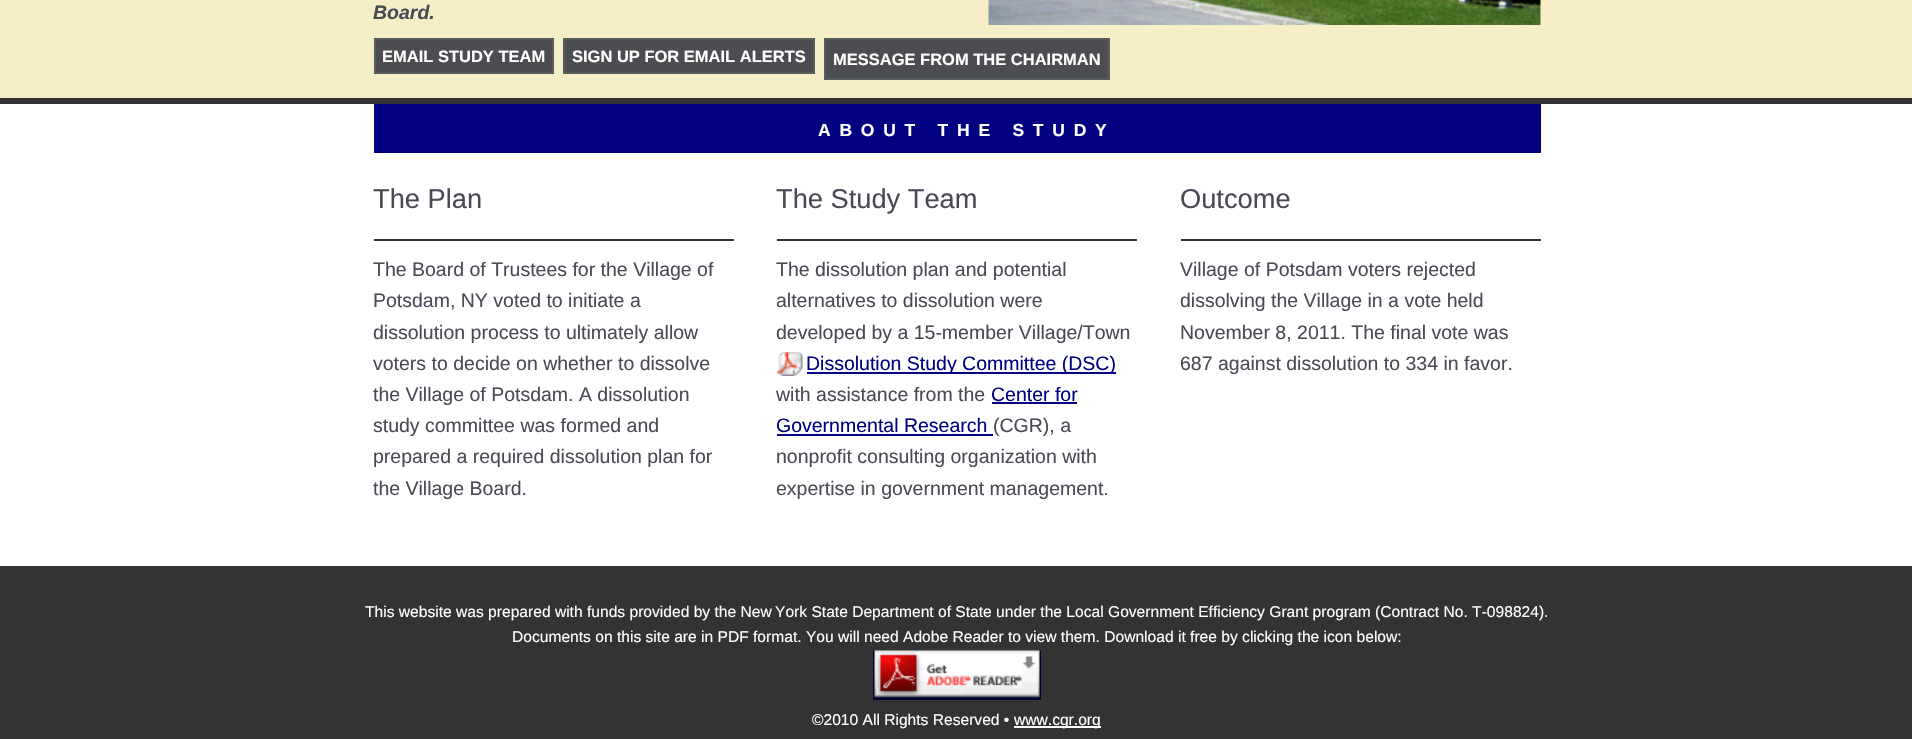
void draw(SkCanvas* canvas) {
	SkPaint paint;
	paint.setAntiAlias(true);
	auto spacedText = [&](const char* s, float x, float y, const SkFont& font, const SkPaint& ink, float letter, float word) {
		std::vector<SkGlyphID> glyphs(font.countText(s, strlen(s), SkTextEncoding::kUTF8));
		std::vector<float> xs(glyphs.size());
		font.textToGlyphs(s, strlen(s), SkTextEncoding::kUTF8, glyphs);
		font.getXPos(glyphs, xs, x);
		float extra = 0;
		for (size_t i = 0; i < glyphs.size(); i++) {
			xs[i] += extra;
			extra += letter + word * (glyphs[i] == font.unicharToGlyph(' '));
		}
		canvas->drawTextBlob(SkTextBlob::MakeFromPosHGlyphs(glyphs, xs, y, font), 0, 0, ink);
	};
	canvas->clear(0xff333333);
	paint.setColor(0xfff5eec7);
	canvas->drawRect(SkRect::MakeXYWH(0, 0, 1912, 98), paint);
	SkFont f1(fontMgr->matchFamilyStyle("Liberation Sans", SkFontStyle::BoldItalic()), 19.5);
	f1.setSubpixel(true);
	paint.setColor(0xff484a55);
	canvas->drawString("Board.", 373, 19, f1, paint);
	canvas->drawImageRect(SkImages::DeferredFromEncodedData(SkData::MakeFromFileName("img1.png")), SkRect::MakeXYWH(988, 0, 553, 25), SkSamplingOptions());
	paint.setColor(0xff4c4d51);
	canvas->drawRect(SkRect::MakeXYWH(375, 39, 178, 34), paint);
	paint.setStroke(true);
	paint.setStrokeWidth(2);
	paint.setColor(0xff575c5f);
	canvas->drawRect(SkRect::MakeXYWH(375, 39, 178, 34), paint);
	SkFont f2(fontMgr->matchFamilyStyle("Liberation Sans", SkFontStyle::Bold()), 16.5);
	f2.setSubpixel(true);
	paint.setStroke(false);
	paint.setColor(0xffffffff);
	canvas->drawString("EMAIL STUDY TEAM", 382, 62, f2, paint);
	paint.setColor(0xff4c4d51);
	canvas->drawRect(SkRect::MakeXYWH(564, 39, 250, 34), paint);
	paint.setStroke(true);
	paint.setColor(0xff575c5f);
	canvas->drawRect(SkRect::MakeXYWH(564, 39, 250, 34), paint);
	paint.setStroke(false);
	paint.setColor(0xffffffff);
	canvas->drawString("SIGN UP FOR EMAIL ALERTS", 572, 62, f2, paint);
	paint.setColor(0xff4c4d51);
	canvas->drawRect(SkRect::MakeXYWH(825, 39, 284, 40), paint);
	paint.setStroke(true);
	paint.setColor(0xff575c5f);
	canvas->drawRect(SkRect::MakeXYWH(825, 39, 284, 40), paint);
	paint.setStroke(false);
	paint.setColor(0xffffffff);
	canvas->drawString("MESSAGE FROM THE CHAIRMAN", 833, 65, f2, paint);
	canvas->drawRect(SkRect::MakeXYWH(0, 104, 1912, 462), paint);
	paint.setColor(0xff000080);
	canvas->drawRect(SkRect::MakeXYWH(374, 104, 1167, 49), paint);
	SkFont f3(fontMgr->matchFamilyStyle("Liberation Sans", SkFontStyle::Bold()), 17.5);
	f3.setSubpixel(true);
	paint.setColor(0xffffffff);
	spacedText("ABOUT THE STUDY", 818, 136, f3, paint, 8.75, 0);
	SkFont f4(fontMgr->matchFamilyStyle("Liberation Sans", SkFontStyle::Normal()), 27.25);
	f4.setSubpixel(true);
	paint.setColor(0xff484a55);
	canvas->drawString("The Plan", 373, 208, f4, paint);
	paint.setColor(0xff333333);
	canvas->drawRect(SkRect::MakeXYWH(374, 239, 360, 2), paint);
	SkFont f5(fontMgr->matchFamilyStyle("Liberation Sans", SkFontStyle::Normal()), 19.5);
	f5.setSubpixel(true);
	paint.setColor(0xff484a55);
	canvas->drawString("The Board of Trustees for the Village of", 373, 276, f5, paint);
	canvas->drawString("Potsdam, NY voted to initiate a", 373, 307, f5, paint);
	canvas->drawString("dissolution process to ultimately allow", 373, 339, f5, paint);
	canvas->drawString("voters to decide on whether to dissolve", 373, 370, f5, paint);
	canvas->drawString("the Village of Potsdam. A dissolution", 373, 401, f5, paint);
	canvas->drawString("study committee was formed and", 373, 432, f5, paint);
	canvas->drawString("prepared a required dissolution plan for", 373, 463, f5, paint);
	canvas->drawString("the Village Board.", 373, 495, f5, paint);
	canvas->drawString("The Study Team", 776, 208, f4, paint);
	paint.setColor(0xff333333);
	canvas->drawRect(SkRect::MakeXYWH(777, 239, 360, 2), paint);
	paint.setColor(0xff484a55);
	canvas->drawString("The dissolution plan and potential", 776, 276, f5, paint);
	canvas->drawString("alternatives to dissolution were", 776, 307, f5, paint);
	canvas->drawString("developed by a 15-member Village/Town", 776, 339, f5, paint);
	canvas->drawImageRect(SkImages::DeferredFromEncodedData(SkData::MakeFromFileName("img2.png")), SkRect::MakeXYWH(777, 352, 26, 24), SkSamplingOptions());
	paint.setColor(0xff000080);
	canvas->drawRect(SkRect::MakeXYWH(807, 372, 309, 2), paint);
	canvas->drawString("Dissolution Study Committee (DSC)", 806, 370, f5, paint);
	paint.setColor(0xff484a55);
	canvas->drawString("with assistance from the", 776, 401, f5, paint);
	paint.setColor(0xff000080);
	canvas->drawString("Center for", 991, 401, f5, paint);
	canvas->drawRect(SkRect::MakeXYWH(992, 402, 85, 2), paint);
	canvas->drawString("Governmental Research", 776, 432, f5, paint);
	canvas->drawRect(SkRect::MakeXYWH(777, 434, 216, 2), paint);
	paint.setColor(0xff484a55);
	canvas->drawString("(CGR), a", 993, 432, f5, paint);
	canvas->drawString("nonprofit consulting organization with", 776, 463, f5, paint);
	canvas->drawString("expertise in government management.", 776, 495, f5, paint);
	canvas->drawString("Outcome", 1180, 208, f4, paint);
	paint.setColor(0xff333333);
	canvas->drawRect(SkRect::MakeXYWH(1181, 239, 360, 2), paint);
	paint.setColor(0xff484a55);
	canvas->drawString("Village of Potsdam voters rejected", 1180, 276, f5, paint);
	canvas->drawString("dissolving the Village in a vote held", 1180, 307, f5, paint);
	canvas->drawString("November 8, 2011. The final vote was", 1180, 339, f5, paint);
	canvas->drawString("687 against dissolution to 334 in favor.", 1180, 370, f5, paint);
	SkFont f6(fontMgr->matchFamilyStyle("Liberation Sans", SkFontStyle::Normal()), 15.6);
	f6.setSubpixel(true);
	paint.setColor(0xffffffff);
	canvas->drawString("This website was prepared with funds provided by the New", 365, 617, f6, paint);
	canvas->drawString("York State Department of State under the Local Government Efficiency Grant program (Contract No. T-098824).", 775, 617, f6, paint);
	canvas->drawString("Documents on this site are in PDF format. You will need Adobe Reader to view them. Download it free by clicking the icon below:", 512, 642, f6, paint);
	canvas->drawImageRect(SkImages::DeferredFromEncodedData(SkData::MakeFromFileName("img3.png")), SkRect::MakeXYWH(873, 650, 168, 50), SkSamplingOptions());
	canvas->drawString("©2010 All Rights Reserved •", 812, 725, f6, paint);
	canvas->drawRect(SkRect::MakeXYWH(1014, 726, 87, 2), paint);
	canvas->drawString("www.cgr.org", 1014, 725, f6, paint);
}
